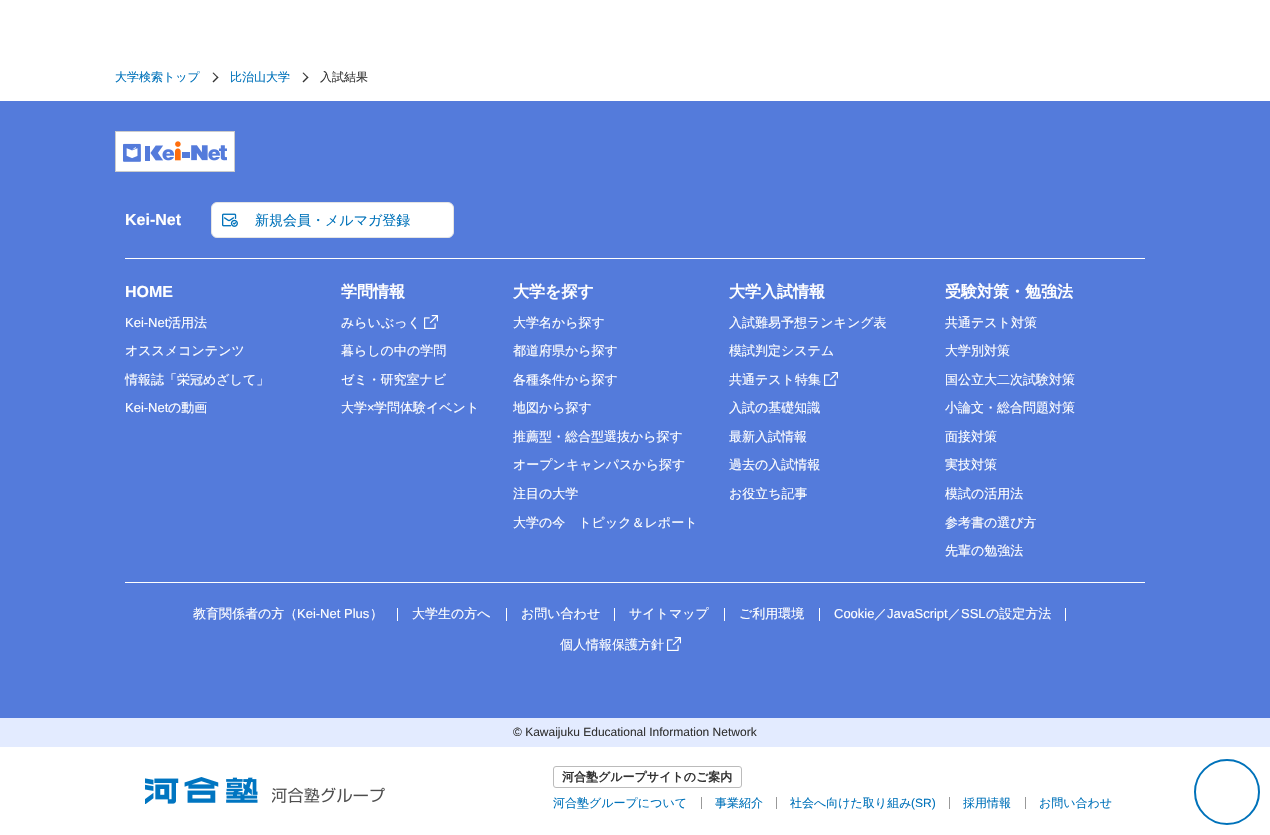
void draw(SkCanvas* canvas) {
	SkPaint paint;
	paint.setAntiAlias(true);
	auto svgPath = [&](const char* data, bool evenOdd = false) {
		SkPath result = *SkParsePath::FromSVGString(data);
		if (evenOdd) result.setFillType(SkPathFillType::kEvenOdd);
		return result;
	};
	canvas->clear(0xffffffff);
	SkFont f1(fontMgr->matchFamilyStyle("WenQuanYi Zen Hei", SkFontStyle(500, SkFontStyle::kNormal_Width, SkFontStyle::kUpright_Slant)), 12);
	f1.setSubpixel(true);
	paint.setColor(0xff0072ba);
	canvas->drawString("大学検索トップ", 115, 81, f1, paint);
	paint.setColor(0xff333333);
	canvas->drawPath(svgPath("M213.5 72.5L218.5 77.5L217.5 78L212.5 73Z"), paint);
	canvas->drawPath(svgPath("M217.5 76.5L218.5 77.5L213.5 82.5L212.5 81.5Z"), paint);
	paint.setColor(0xff0072ba);
	canvas->drawString("比治山大学", 230, 81, f1, paint);
	paint.setColor(0xff333333);
	canvas->drawPath(svgPath("M303.5 72.5L308.5 77.5L307.5 78L302.5 73Z"), paint);
	canvas->drawPath(svgPath("M307.5 76.5L308.5 77.5L303.5 82.5L302.5 81.5Z"), paint);
	canvas->drawString("入試結果", 320, 81, f1, paint);
	paint.setColor(0xff547bdb);
	canvas->drawRect(SkRect::MakeXYWH(0, 101, 1270, 617), paint);
	canvas->drawImageRect(SkImages::DeferredFromEncodedData(SkData::MakeFromFileName("img1.png")), SkRect::MakeXYWH(115, 131, 120, 41), SkSamplingOptions());
	paint.setColor(0xffffffff);
	canvas->drawRect(SkRect::MakeXYWH(125, 258, 1020, 1), paint);
	SkFont f2(fontMgr->matchFamilyStyle("Liberation Sans", SkFontStyle::Bold()), 16);
	f2.setSubpixel(true);
	canvas->drawString("Kei-Net", 125, 225, f2, paint);
	canvas->drawRoundRect(SkRect::MakeXYWH(211.5, 202.5, 242, 35), 5.5, 5.5, paint);
	paint.setStroke(true);
	paint.setStrokeWidth(1);
	paint.setColor(0xffe4e4e4);
	canvas->drawRoundRect(SkRect::MakeXYWH(211.5, 202.5, 242, 35), 5.5, 5.5, paint);
	canvas->drawImageRect(SkImages::DeferredFromEncodedData(SkData::MakeFromFileName("img2.png")), SkRect::MakeXYWH(222, 213, 16, 14), SkSamplingOptions());
	SkFont f3(fontMgr->matchFamilyStyle("WenQuanYi Zen Hei", SkFontStyle(500, SkFontStyle::kNormal_Width, SkFontStyle::kUpright_Slant)), 14);
	f3.setSubpixel(true);
	paint.setStroke(false);
	paint.setColor(0xff0072ba);
	canvas->drawString("新規会員・メルマガ登録", 255, 225, f3, paint);
	paint.setColor(0xffffffff);
	canvas->drawRect(SkRect::MakeXYWH(125, 582, 1020, 1), paint);
	canvas->drawString("HOME", 125, 297, f2, paint);
	SkFont f4(fontMgr->matchFamilyStyle("Liberation Sans", SkFontStyle::Normal()), 13);
	f4.setSubpixel(true);
	canvas->drawString("Kei-Net", 125, 327, f4, paint);
	SkFont f5(fontMgr->matchFamilyStyle("WenQuanYi Zen Hei", SkFontStyle(500, SkFontStyle::kNormal_Width, SkFontStyle::kUpright_Slant)), 13);
	f5.setSubpixel(true);
	canvas->drawString("活用法", 168, 327, f5, paint);
	canvas->drawString("オススメコンテンツ", 125, 355, f5, paint);
	canvas->drawString("情報誌「栄冠めざして」", 125, 384, f5, paint);
	canvas->drawString("Kei-Net", 125, 412, f4, paint);
	canvas->drawString("の動画", 168, 412, f5, paint);
	SkFont f6(fontMgr->matchFamilyStyle("WenQuanYi Zen Hei", SkFontStyle::Bold()), 16);
	f6.setSubpixel(true);
	canvas->drawString("学問情報", 341, 297, f6, paint);
	canvas->drawString("みらいぶっく", 341, 327, f5, paint);
	canvas->drawImageRect(SkImages::DeferredFromEncodedData(SkData::MakeFromFileName("img3.png")), SkRect::MakeXYWH(424, 315, 14, 14), SkSamplingOptions());
	canvas->drawString("暮らしの中の学問", 341, 355, f5, paint);
	canvas->drawString("ゼミ・研究室ナビ", 341, 384, f5, paint);
	canvas->drawString("大学", 341, 412, f5, paint);
	canvas->drawString("×", 367, 412, f4, paint);
	canvas->drawString("学問体験イベント", 374, 412, f5, paint);
	canvas->drawString("大学を探す", 513, 297, f6, paint);
	canvas->drawString("大学名から探す", 513, 327, f5, paint);
	canvas->drawString("都道府県から探す", 513, 355, f5, paint);
	canvas->drawString("各種条件から探す", 513, 384, f5, paint);
	canvas->drawString("地図から探す", 513, 412, f5, paint);
	canvas->drawString("推薦型・総合型選抜から探す", 513, 441, f5, paint);
	canvas->drawString("オープンキャンパスから探す", 513, 469, f5, paint);
	canvas->drawString("注目の大学", 513, 498, f5, paint);
	canvas->drawString("大学の今　トピック＆レポート", 513, 527, f5, paint);
	canvas->drawString("大学入試情報", 729, 297, f6, paint);
	canvas->drawString("入試難易予想ランキング表", 729, 327, f5, paint);
	canvas->drawString("模試判定システム", 729, 355, f5, paint);
	canvas->drawString("共通テスト特集", 729, 384, f5, paint);
	canvas->drawImageRect(SkImages::DeferredFromEncodedData(SkData::MakeFromFileName("img3.png")), SkRect::MakeXYWH(824, 372, 14, 14), SkSamplingOptions());
	canvas->drawString("入試の基礎知識", 729, 412, f5, paint);
	canvas->drawString("最新入試情報", 729, 441, f5, paint);
	canvas->drawString("過去の入試情報", 729, 469, f5, paint);
	canvas->drawString("お役立ち記事", 729, 498, f5, paint);
	canvas->drawString("受験対策・勉強法", 945, 297, f6, paint);
	canvas->drawString("共通テスト対策", 945, 327, f5, paint);
	canvas->drawString("大学別対策", 945, 355, f5, paint);
	canvas->drawString("国公立大二次試験対策", 945, 384, f5, paint);
	canvas->drawString("小論文・総合問題対策", 945, 412, f5, paint);
	canvas->drawString("面接対策", 945, 441, f5, paint);
	canvas->drawString("実技対策", 945, 469, f5, paint);
	canvas->drawString("模試の活用法", 945, 498, f5, paint);
	canvas->drawString("参考書の選び方", 945, 527, f5, paint);
	canvas->drawString("先輩の勉強法", 945, 555, f5, paint);
	canvas->drawString("教育関係者の方（", 193, 618, f5, paint);
	canvas->drawString("Kei-Net Plus", 297, 618, f4, paint);
	canvas->drawString("）", 370, 618, f5, paint);
	canvas->drawRect(SkRect::MakeXYWH(397, 608, 1, 13), paint);
	canvas->drawString("大学生の方へ", 412, 618, f5, paint);
	canvas->drawRect(SkRect::MakeXYWH(506, 608, 1, 13), paint);
	canvas->drawString("お問い合わせ", 521, 618, f5, paint);
	canvas->drawRect(SkRect::MakeXYWH(614, 608, 1, 13), paint);
	canvas->drawString("サイトマップ", 629, 618, f5, paint);
	canvas->drawRect(SkRect::MakeXYWH(724, 608, 1, 13), paint);
	canvas->drawString("ご利用環境", 739, 618, f5, paint);
	canvas->drawRect(SkRect::MakeXYWH(819, 608, 1, 13), paint);
	canvas->drawString("Cookie", 834, 618, f4, paint);
	canvas->drawString("／", 874, 618, f5, paint);
	canvas->drawString("JavaScript", 887, 618, f4, paint);
	canvas->drawString("／", 948, 618, f5, paint);
	canvas->drawString("SSL", 961, 618, f4, paint);
	canvas->drawString("の設定方法", 986, 618, f5, paint);
	canvas->drawRect(SkRect::MakeXYWH(1065, 608, 1, 13), paint);
	canvas->drawString("個人情報保護方針", 560, 649, f5, paint);
	canvas->drawImageRect(SkImages::DeferredFromEncodedData(SkData::MakeFromFileName("img3.png")), SkRect::MakeXYWH(667, 637, 14, 14), SkSamplingOptions());
	paint.setColor(0xffe3ebff);
	canvas->drawRect(SkRect::MakeXYWH(0, 718, 1270, 29), paint);
	SkFont f7(fontMgr->matchFamilyStyle("Liberation Sans", SkFontStyle::Normal()), 12);
	f7.setSubpixel(true);
	paint.setColor(0xff333333);
	canvas->drawString("© Kawaijuku Educational Information Network", 513, 736, f7, paint);
	canvas->drawImageRect(SkImages::DeferredFromEncodedData(SkData::MakeFromFileName("img4.png")), SkRect::MakeXYWH(145, 777, 113, 27), SkSamplingOptions());
	canvas->drawImageRect(SkImages::DeferredFromEncodedData(SkData::MakeFromFileName("img5.png")), SkRect::MakeXYWH(272, 787, 113, 16), SkSamplingOptions());
	paint.setStroke(true);
	paint.setColor(0xffbbbbbb);
	canvas->drawRoundRect(SkRect::MakeXYWH(553.5, 766.5, 188, 21), 2.5, 2.5, paint);
	SkFont f8(fontMgr->matchFamilyStyle("WenQuanYi Zen Hei", SkFontStyle::Bold()), 12);
	f8.setSubpixel(true);
	paint.setStroke(false);
	paint.setColor(0xff333333);
	canvas->drawString("河合塾グループサイトのご案内", 562, 781, f8, paint);
	paint.setColor(0xff0072ba);
	canvas->drawString("河合塾グループについて", 553, 807, f1, paint);
	paint.setColor(0xff999999);
	canvas->drawRect(SkRect::MakeXYWH(701, 797, 1, 12), paint);
	paint.setColor(0xff0072ba);
	canvas->drawString("事業紹介", 715, 807, f1, paint);
	paint.setColor(0xff999999);
	canvas->drawRect(SkRect::MakeXYWH(776, 797, 1, 12), paint);
	paint.setColor(0xff0072ba);
	canvas->drawString("社会へ向けた取り組み", 790, 807, f1, paint);
	canvas->drawString("(SR)", 911, 807, f7, paint);
	paint.setColor(0xff999999);
	canvas->drawRect(SkRect::MakeXYWH(949, 797, 1, 12), paint);
	paint.setColor(0xff0072ba);
	canvas->drawString("採用情報", 963, 807, f1, paint);
	paint.setColor(0xff999999);
	canvas->drawRect(SkRect::MakeXYWH(1025, 797, 1, 12), paint);
	paint.setColor(0xff0072ba);
	canvas->drawString("お問い合わせ", 1039, 807, f1, paint);
	paint.setStroke(true);
	paint.setStrokeWidth(2);
	canvas->drawCircle(1227, 792, 32, paint);
}
